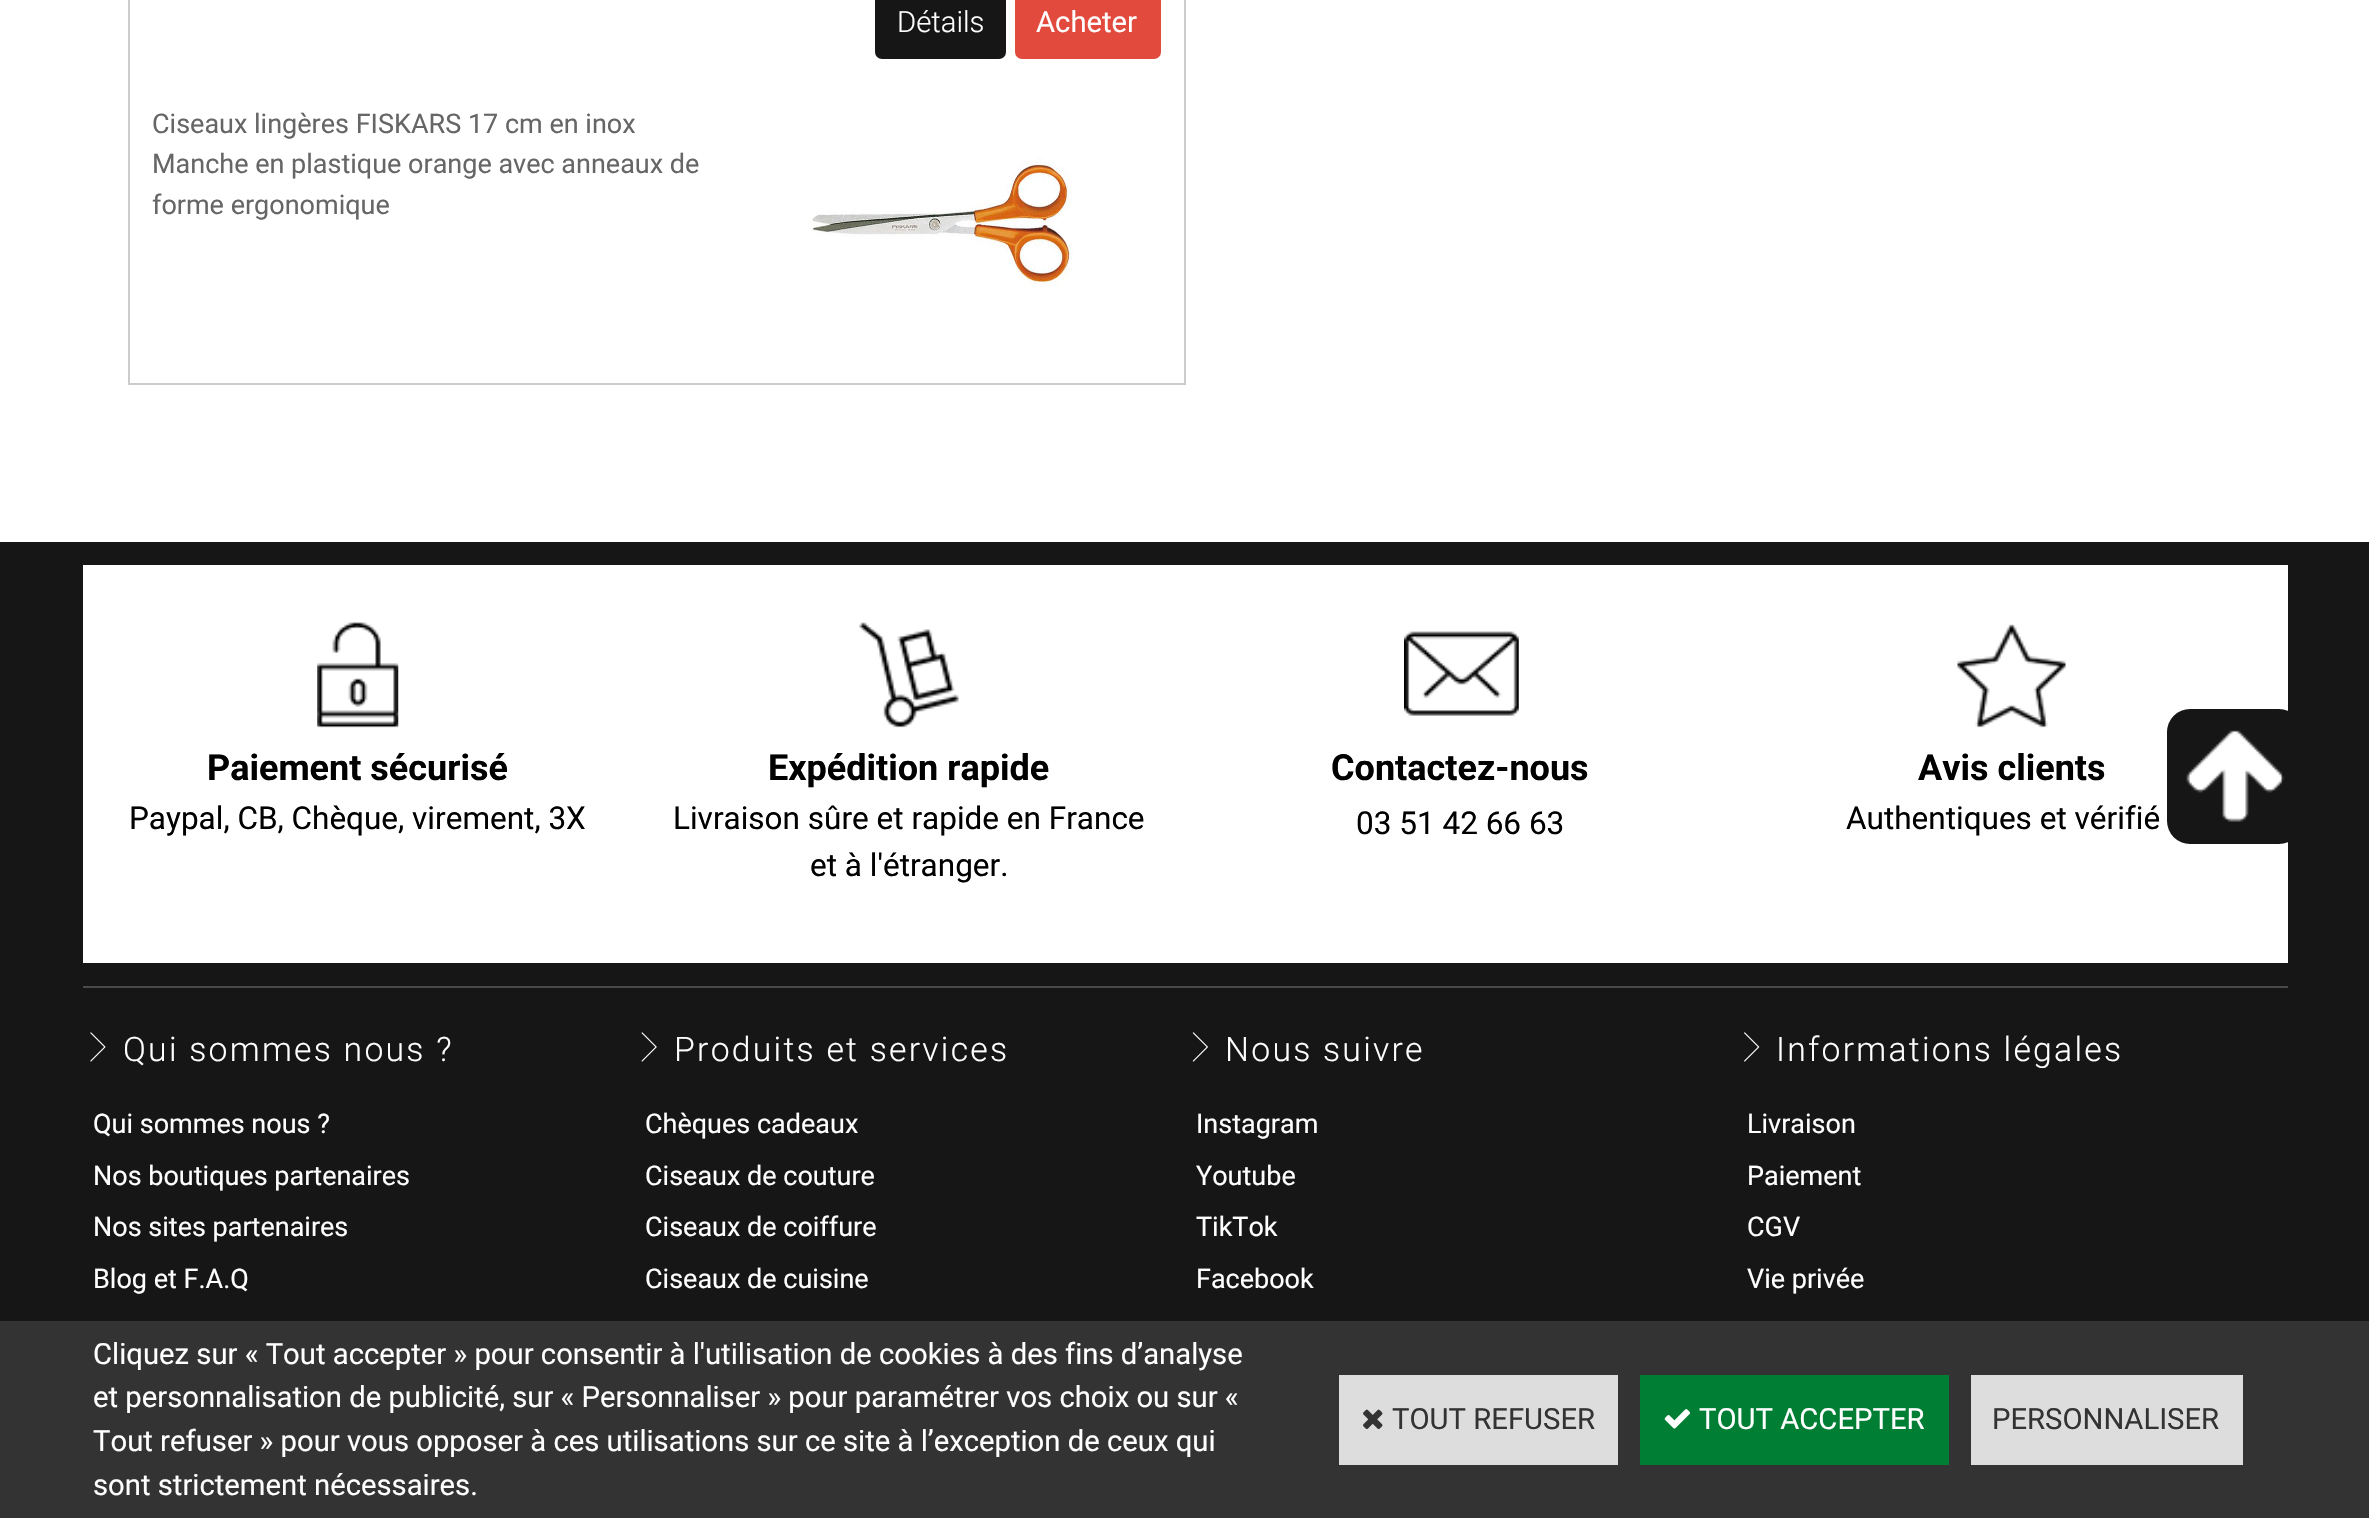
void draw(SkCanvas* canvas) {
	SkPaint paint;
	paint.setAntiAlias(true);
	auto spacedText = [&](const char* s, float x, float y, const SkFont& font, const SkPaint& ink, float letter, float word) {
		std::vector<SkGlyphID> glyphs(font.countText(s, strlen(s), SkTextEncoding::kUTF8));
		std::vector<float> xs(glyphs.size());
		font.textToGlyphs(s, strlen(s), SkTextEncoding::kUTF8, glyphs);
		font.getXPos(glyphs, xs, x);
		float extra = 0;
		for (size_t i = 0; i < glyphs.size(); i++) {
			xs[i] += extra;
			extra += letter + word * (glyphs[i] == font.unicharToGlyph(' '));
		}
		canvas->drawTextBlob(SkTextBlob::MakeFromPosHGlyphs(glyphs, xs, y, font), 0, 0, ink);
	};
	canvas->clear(0xffffffff);
	paint.setStroke(true);
	paint.setStrokeWidth(2);
	paint.setColor(0xffcccccc);
	canvas->drawRect(SkRect::MakeXYWH(129, -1, 1056, 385), paint);
	paint.setStroke(false);
	paint.setColor(0xff161616);
	canvas->drawRoundRect(SkRect::MakeXYWH(875, -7, 131, 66), 7, 7, paint);
	SkFont f1(fontMgr->matchFamilyStyle("Roboto", SkFontStyle(300, SkFontStyle::kNormal_Width, SkFontStyle::kUpright_Slant)), 29.25);
	f1.setSubpixel(true);
	paint.setColor(0xffffffff);
	canvas->drawString("Détails", 897, 32, f1, paint);
	paint.setColor(0xffe14a3d);
	canvas->drawRoundRect(SkRect::MakeXYWH(1015, -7, 146, 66), 7, 7, paint);
	SkFont f2(fontMgr->matchFamilyStyle("Roboto", SkFontStyle::Normal()), 29.25);
	f2.setSubpixel(true);
	paint.setColor(0xffffffff);
	canvas->drawString("Acheter", 1036, 32, f2, paint);
	SkFont f3(fontMgr->matchFamilyStyle("Roboto", SkFontStyle::Normal()), 27);
	f3.setSubpixel(true);
	paint.setColor(0xff666666);
	canvas->drawString("Ciseaux lingères FISKARS 17 cm en inox", 152, 133, f3, paint);
	canvas->drawString("Manche en plastique orange avec anneaux de", 152, 173, f3, paint);
	canvas->drawString("forme ergonomique", 152, 214, f3, paint);
	canvas->drawImageRect(SkImages::DeferredFromEncodedData(SkData::MakeFromFileName("img1.png")), SkRect::MakeXYWH(811, 156, 263, 132), SkSamplingOptions());
	paint.setColor(0xff161616);
	canvas->drawRect(SkRect::MakeXYWH(0, 542, 2369, 779), paint);
	paint.setColor(0xff494949);
	canvas->drawRect(SkRect::MakeXYWH(83, 986, 2205, 2), paint);
	paint.setColor(0xffffffff);
	canvas->drawRect(SkRect::MakeXYWH(83, 565, 2205, 398), paint);
	canvas->drawImageRect(SkImages::DeferredFromEncodedData(SkData::MakeFromFileName("img2.png")), SkRect::MakeXYWH(317, 622, 82, 106), SkSamplingOptions());
	SkFont f4(fontMgr->matchFamilyStyle("Roboto", SkFontStyle::Bold()), 36);
	f4.setSubpixel(true);
	paint.setColor(0xff000000);
	canvas->drawString("Paiement sécurisé", 207, 780, f4, paint);
	SkFont f5(fontMgr->matchFamilyStyle("Roboto", SkFontStyle::Normal()), 31.5);
	f5.setSubpixel(true);
	canvas->drawString("Paypal, CB, Chèque, virement, 3X", 129, 829, f5, paint);
	canvas->drawImageRect(SkImages::DeferredFromEncodedData(SkData::MakeFromFileName("img3.png")), SkRect::MakeXYWH(859, 622, 100, 106), SkSamplingOptions());
	canvas->drawString("Expédition rapide", 768, 780, f4, paint);
	canvas->drawString("Livraison sûre et rapide en France", 673, 829, f5, paint);
	canvas->drawString("et à l'étranger.", 810, 876, f5, paint);
	canvas->drawImageRect(SkImages::DeferredFromEncodedData(SkData::MakeFromFileName("img4.png")), SkRect::MakeXYWH(1404, 631, 115, 85), SkSamplingOptions());
	canvas->drawString("Contactez-nous", 1331, 780, f4, paint);
	canvas->drawString("03 51 42 66 63", 1356, 834, f5, paint);
	canvas->drawImageRect(SkImages::DeferredFromEncodedData(SkData::MakeFromFileName("img5.png")), SkRect::MakeXYWH(1957, 624, 109, 104), SkSamplingOptions());
	canvas->drawString("Avis clients", 1918, 780, f4, paint);
	canvas->drawString("Authentiques et vérifié", 1846, 829, f5, paint);
	canvas->drawImageRect(SkImages::DeferredFromEncodedData(SkData::MakeFromFileName("img6.png")), SkRect::MakeXYWH(90, 1032, 16, 30), SkSamplingOptions());
	SkFont f6(fontMgr->matchFamilyStyle("Roboto", SkFontStyle(300, SkFontStyle::kNormal_Width, SkFontStyle::kUpright_Slant)), 33.75);
	f6.setSubpixel(true);
	paint.setColor(0xffffffff);
	spacedText("Qui sommes nous ?", 123, 1061, f6, paint, 2.25, 0);
	canvas->drawString("Qui sommes nous ?", 93, 1133, f3, paint);
	canvas->drawString("Nos boutiques partenaires", 93, 1185, f3, paint);
	canvas->drawString("Nos sites partenaires", 93, 1236, f3, paint);
	canvas->drawString("Blog et F.A.Q", 93, 1288, f3, paint);
	canvas->drawImageRect(SkImages::DeferredFromEncodedData(SkData::MakeFromFileName("img7.png")), SkRect::MakeXYWH(641, 1032, 16, 30), SkSamplingOptions());
	spacedText("Produits et services", 674, 1061, f6, paint, 2.25, 0);
	canvas->drawString("Chèques cadeaux", 645, 1133, f3, paint);
	canvas->drawString("Ciseaux de couture", 645, 1185, f3, paint);
	canvas->drawString("Ciseaux de coiffure", 645, 1236, f3, paint);
	canvas->drawString("Ciseaux de cuisine", 645, 1288, f3, paint);
	canvas->drawImageRect(SkImages::DeferredFromEncodedData(SkData::MakeFromFileName("img8.png")), SkRect::MakeXYWH(1192, 1032, 16, 30), SkSamplingOptions());
	spacedText("Nous suivre", 1225, 1061, f6, paint, 2.25, 0);
	canvas->drawString("Instagram", 1196, 1133, f3, paint);
	canvas->drawString("Youtube", 1196, 1185, f3, paint);
	canvas->drawString("TikTok", 1196, 1236, f3, paint);
	canvas->drawString("Facebook", 1196, 1288, f3, paint);
	canvas->drawImageRect(SkImages::DeferredFromEncodedData(SkData::MakeFromFileName("img9.png")), SkRect::MakeXYWH(1744, 1032, 16, 30), SkSamplingOptions());
	spacedText("Informations légales", 1776, 1061, f6, paint, 2.25, 0);
	canvas->drawString("Livraison", 1747, 1133, f3, paint);
	canvas->drawString("Paiement", 1747, 1185, f3, paint);
	canvas->drawString("CGV", 1747, 1236, f3, paint);
	canvas->drawString("Vie privée", 1747, 1288, f3, paint);
	paint.setColor(0xff161616);
	canvas->drawRoundRect(SkRect::MakeXYWH(2167, 709, 135, 135), 23, 23, paint);
	canvas->drawImageRect(SkImages::DeferredFromEncodedData(SkData::MakeFromFileName("img10.png")), SkRect::MakeXYWH(2186, 730, 99, 92), SkSamplingOptions());
	paint.setColor(0xff333333);
	canvas->drawRect(SkRect::MakeXYWH(0, 1321, 2369, 197), paint);
	paint.setColor(0xffffffff);
	canvas->drawString("Cliquez sur « Tout accepter » pour consentir à l'utilisation de cookies à des fins d’analyse", 93, 1364, f2, paint);
	canvas->drawString("et personnalisation de publicité, sur « Personnaliser » pour paramétrer vos choix ou sur «", 93, 1407, f2, paint);
	canvas->drawString("Tout refuser » pour vous opposer à ces utilisations sur ce site à l’exception de ceux qui", 93, 1451, f2, paint);
	canvas->drawString("sont strictement nécessaires.", 93, 1495, f2, paint);
	paint.setColor(0xffdddddd);
	canvas->drawRect(SkRect::MakeXYWH(1339, 1375, 279, 90), paint);
	canvas->drawImageRect(SkImages::DeferredFromEncodedData(SkData::MakeFromFileName("img11.png")), SkRect::MakeXYWH(1363, 1409, 20, 20), SkSamplingOptions());
	paint.setColor(0xff333333);
	canvas->drawString("TOUT REFUSER", 1392, 1429, f2, paint);
	paint.setColor(0xff007e33);
	canvas->drawRect(SkRect::MakeXYWH(1640, 1375, 309, 90), paint);
	canvas->drawImageRect(SkImages::DeferredFromEncodedData(SkData::MakeFromFileName("img12.png")), SkRect::MakeXYWH(1664, 1409, 26, 20), SkSamplingOptions());
	paint.setColor(0xffffffff);
	canvas->drawString("TOUT ACCEPTER", 1699, 1429, f2, paint);
	paint.setColor(0xffdddddd);
	canvas->drawRect(SkRect::MakeXYWH(1971, 1375, 272, 90), paint);
	paint.setColor(0xff333333);
	canvas->drawString("PERSONNALISER", 1992, 1429, f2, paint);
}
